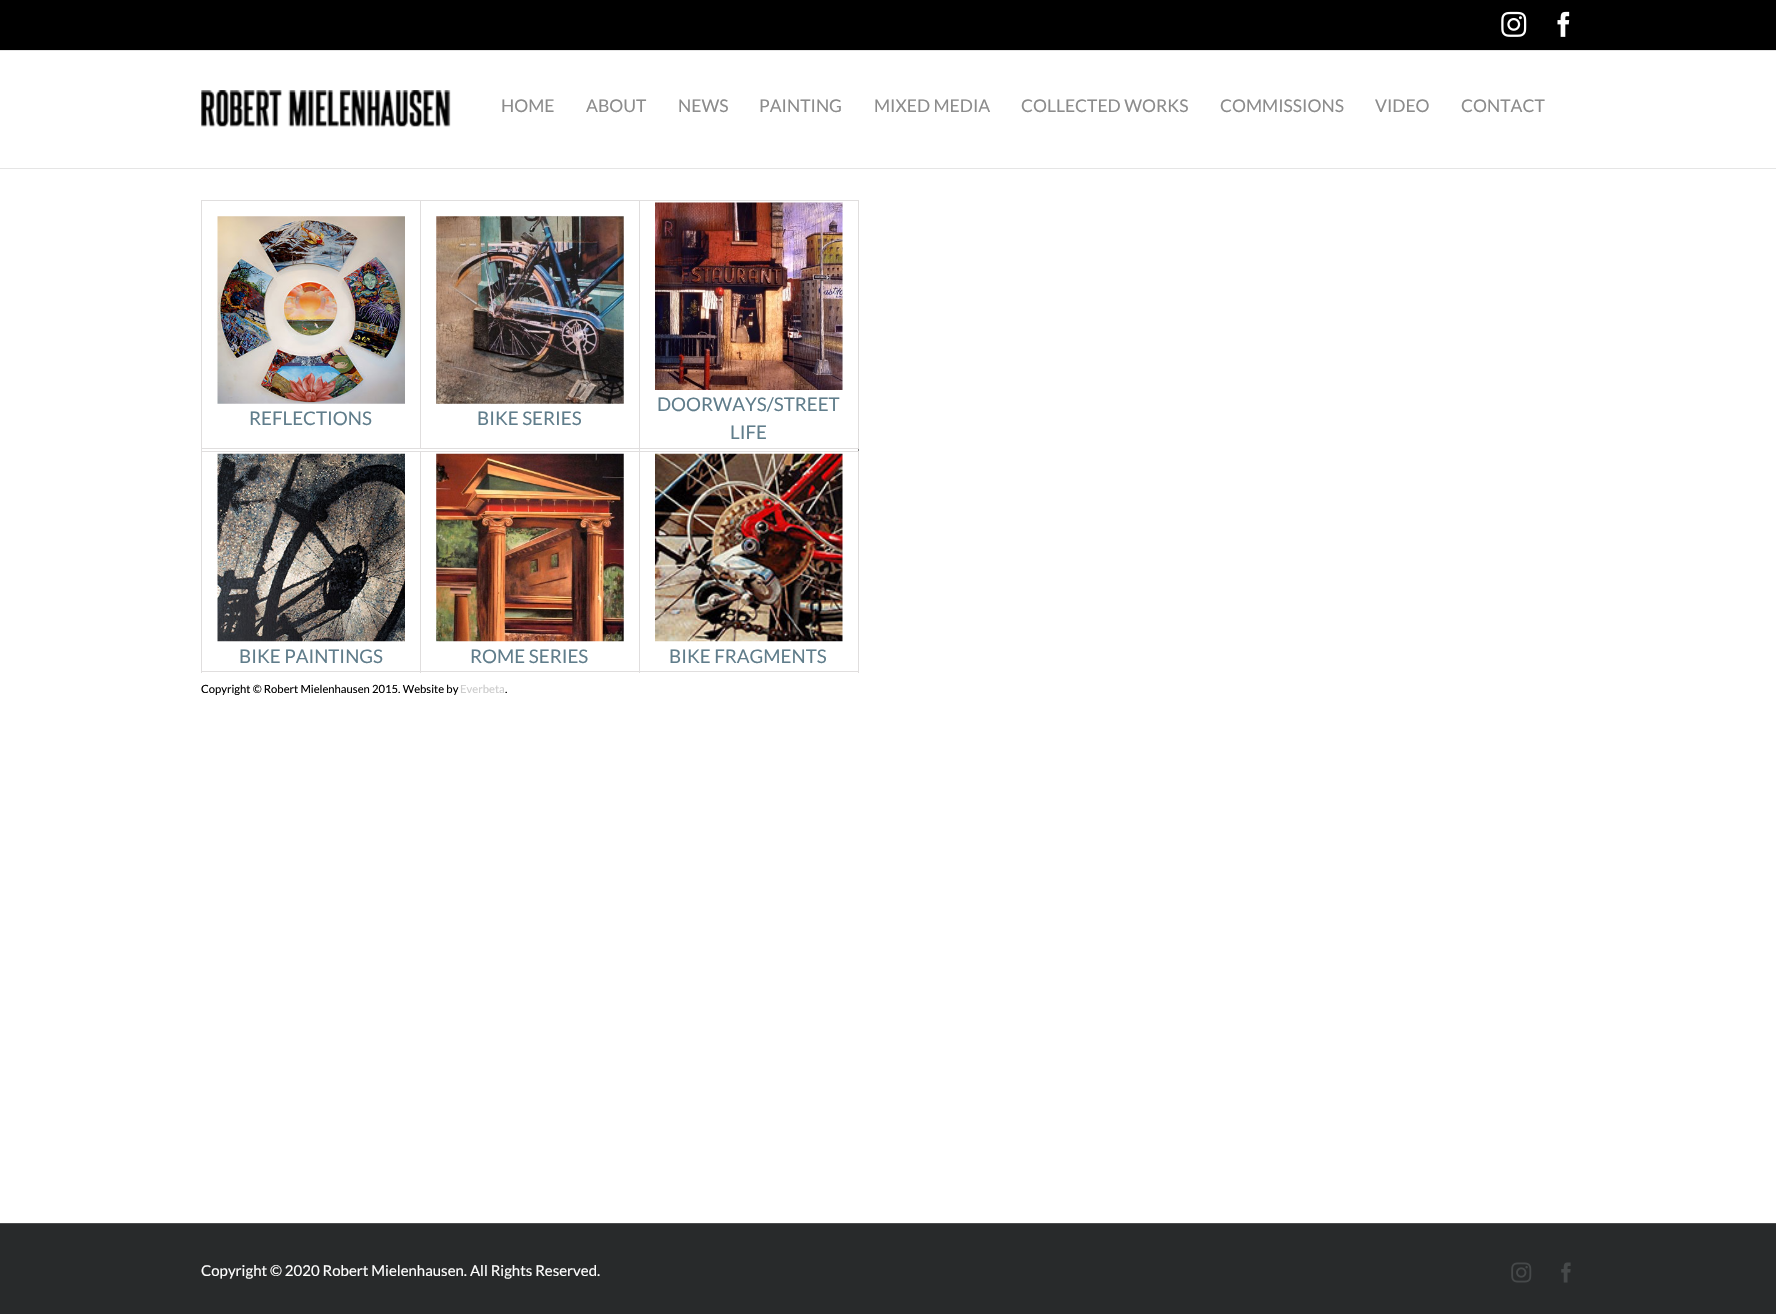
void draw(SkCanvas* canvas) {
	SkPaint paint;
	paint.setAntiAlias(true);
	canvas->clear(0xffffffff);
	paint.setColor(0xff000000);
	canvas->drawRect(SkRect::MakeXYWH(0, 0, 1776, 50), paint);
	paint.setColor(0xffe5e5e5);
	canvas->drawRect(SkRect::MakeXYWH(0, 50, 1776, 1), paint);
	canvas->drawImageRect(SkImages::DeferredFromEncodedData(SkData::MakeFromFileName("img1.png")), SkRect::MakeXYWH(1501, 11, 26, 26), SkSamplingOptions());
	canvas->drawImageRect(SkImages::DeferredFromEncodedData(SkData::MakeFromFileName("img2.png")), SkRect::MakeXYWH(1557, 11, 13, 26), SkSamplingOptions());
	canvas->drawRect(SkRect::MakeXYWH(0, 168, 1776, 1), paint);
	canvas->drawImageRect(SkImages::DeferredFromEncodedData(SkData::MakeFromFileName("img3.png")), SkRect::MakeXYWH(201, 90, 250, 37), SkSamplingOptions());
	SkFont f1(fontMgr->matchFamilyStyle("Lato", SkFontStyle::Normal()), 17.5);
	f1.setSubpixel(true);
	paint.setColor(0xff8c8c8c);
	canvas->drawString("HOME", 501, 112, f1, paint);
	canvas->drawString("ABOUT", 586, 112, f1, paint);
	canvas->drawString("NEWS", 678, 112, f1, paint);
	canvas->drawString("PAINTING", 759, 112, f1, paint);
	canvas->drawString("MIXED MEDIA", 874, 112, f1, paint);
	canvas->drawString("COLLECTED WORKS", 1021, 112, f1, paint);
	canvas->drawString("COMMISSIONS", 1220, 112, f1, paint);
	canvas->drawString("VIDEO", 1375, 112, f1, paint);
	canvas->drawString("CONTACT", 1461, 112, f1, paint);
	paint.setColor(0xff808080);
	canvas->drawRect(SkRect::MakeXYWH(858, 449, 1, 2), paint);
	paint.setColor(0xffe0dede);
	canvas->drawRect(SkRect::MakeXYWH(639, 200, 220, 1), paint);
	canvas->drawRect(SkRect::MakeXYWH(858, 200, 1, 249), paint);
	canvas->drawRect(SkRect::MakeXYWH(201, 448, 439, 1), paint);
	canvas->drawRect(SkRect::MakeXYWH(639, 451, 220, 1), paint);
	canvas->drawRect(SkRect::MakeXYWH(858, 451, 1, 222), paint);
	canvas->drawRect(SkRect::MakeXYWH(639, 671, 220, 1), paint);
	canvas->drawRect(SkRect::MakeXYWH(639, 451, 1, 222), paint);
	canvas->drawRect(SkRect::MakeXYWH(420, 451, 220, 1), paint);
	canvas->drawRect(SkRect::MakeXYWH(639, 448, 1, 5), paint);
	canvas->drawRect(SkRect::MakeXYWH(639, 448, 220, 1), paint);
	canvas->drawRect(SkRect::MakeXYWH(639, 200, 1, 249), paint);
	canvas->drawRect(SkRect::MakeXYWH(420, 200, 220, 1), paint);
	canvas->drawRect(SkRect::MakeXYWH(420, 200, 1, 249), paint);
	canvas->drawRect(SkRect::MakeXYWH(201, 200, 220, 1), paint);
	canvas->drawRect(SkRect::MakeXYWH(420, 671, 220, 1), paint);
	canvas->drawRect(SkRect::MakeXYWH(420, 451, 1, 222), paint);
	canvas->drawRect(SkRect::MakeXYWH(201, 451, 220, 1), paint);
	canvas->drawRect(SkRect::MakeXYWH(201, 671, 220, 1), paint);
	canvas->drawRect(SkRect::MakeXYWH(201, 451, 1, 222), paint);
	canvas->drawRect(SkRect::MakeXYWH(201, 448, 1, 5), paint);
	canvas->drawRect(SkRect::MakeXYWH(201, 200, 1, 249), paint);
	canvas->drawImageRect(SkImages::DeferredFromEncodedData(SkData::MakeFromFileName("img4.png")), SkRect::MakeXYWH(217, 216, 188, 188), SkSamplingOptions());
	SkFont f2(fontMgr->matchFamilyStyle("Lato", SkFontStyle::Normal()), 18.75);
	f2.setSubpixel(true);
	paint.setColor(0xff607d8b);
	canvas->drawString("REFLECTIONS", 249, 425, f2, paint);
	canvas->drawImageRect(SkImages::DeferredFromEncodedData(SkData::MakeFromFileName("img5.png")), SkRect::MakeXYWH(436, 216, 188, 188), SkSamplingOptions());
	canvas->drawString("BIKE SERIES", 477, 425, f2, paint);
	canvas->drawImageRect(SkImages::DeferredFromEncodedData(SkData::MakeFromFileName("img6.png")), SkRect::MakeXYWH(655, 202, 188, 188), SkSamplingOptions());
	canvas->drawString("DOORWAYS/STREET", 657, 411, f2, paint);
	canvas->drawString("LIFE", 730, 439, f2, paint);
	canvas->drawImageRect(SkImages::DeferredFromEncodedData(SkData::MakeFromFileName("img7.png")), SkRect::MakeXYWH(217, 453, 188, 189), SkSamplingOptions());
	canvas->drawString("BIKE PAINTINGS", 239, 663, f2, paint);
	canvas->drawImageRect(SkImages::DeferredFromEncodedData(SkData::MakeFromFileName("img8.png")), SkRect::MakeXYWH(436, 453, 188, 189), SkSamplingOptions());
	canvas->drawString("ROME SERIES", 470, 663, f2, paint);
	canvas->drawImageRect(SkImages::DeferredFromEncodedData(SkData::MakeFromFileName("img9.png")), SkRect::MakeXYWH(655, 453, 188, 189), SkSamplingOptions());
	canvas->drawString("BIKE FRAGMENTS", 669, 663, f2, paint);
	SkFont f3(fontMgr->matchFamilyStyle("Lato", SkFontStyle::Normal()), 11.25);
	f3.setSubpixel(true);
	paint.setColor(0xff000000);
	canvas->drawString("Copyright © Robert Mielenhausen 2015. Website by", 201, 693, f3, paint);
	paint.setColor(0xffcccccc);
	canvas->drawString("Everbeta", 460, 693, f3, paint);
	paint.setColor(0xff000000);
	canvas->drawString(".", 505, 693, f3, paint);
	paint.setColor(0xff282a2b);
	canvas->drawRect(SkRect::MakeXYWH(0, 1224, 1776, 90), paint);
	paint.setColor(0xff4b4c4d);
	canvas->drawRect(SkRect::MakeXYWH(0, 1223, 1776, 1), paint);
	SkFont f4(fontMgr->matchFamilyStyle("Lato", SkFontStyle::Normal()), 15);
	f4.setSubpixel(true);
	paint.setColor(0xffffffff);
	canvas->drawString("Copyright © 2020 Robert Mielenhausen. All Rights Reserved.", 201, 1276, f4, paint);
	canvas->drawImageRect(SkImages::DeferredFromEncodedData(SkData::MakeFromFileName("img10.png")), SkRect::MakeXYWH(1511, 1262, 21, 21), SkSamplingOptions());
	canvas->drawImageRect(SkImages::DeferredFromEncodedData(SkData::MakeFromFileName("img11.png")), SkRect::MakeXYWH(1561, 1262, 10, 21), SkSamplingOptions());
}
